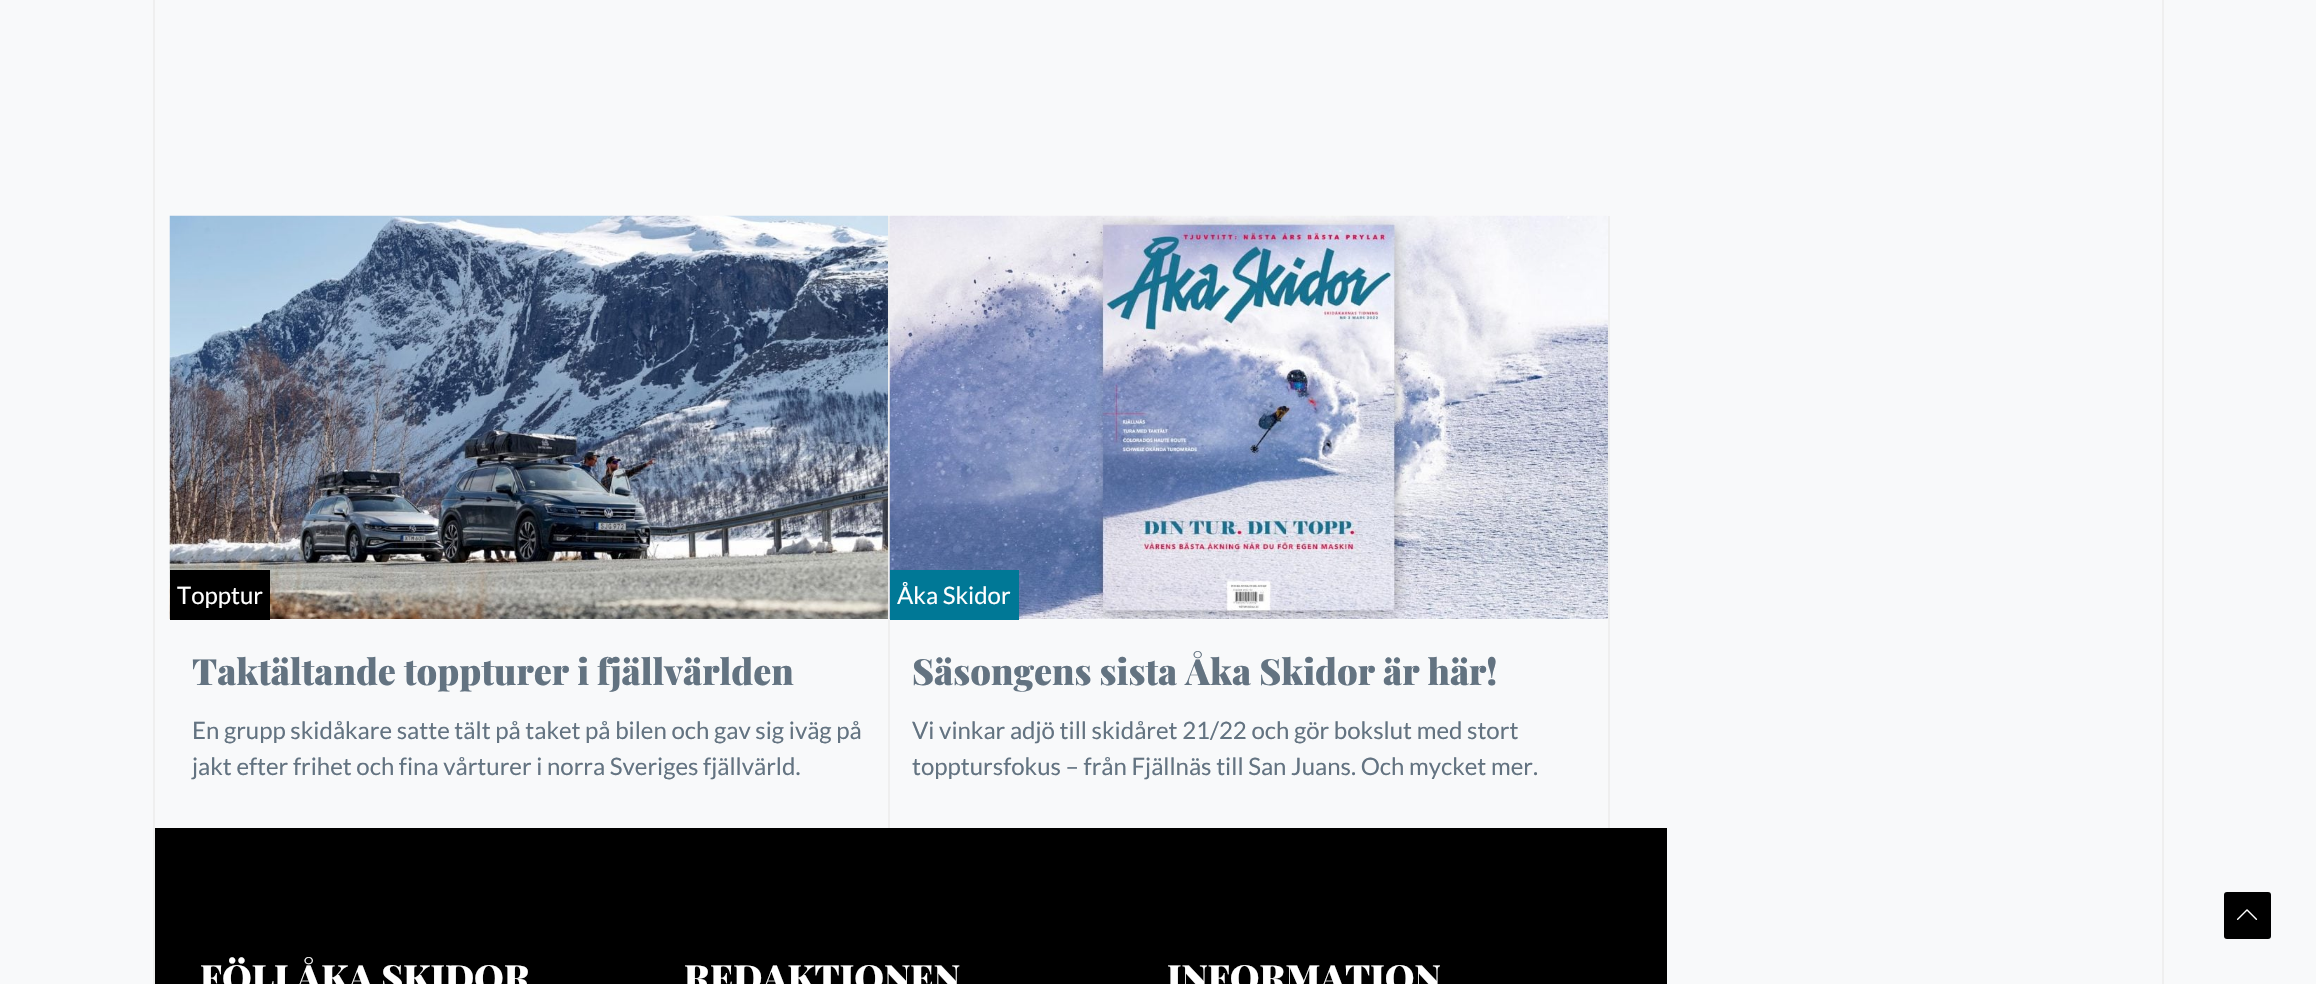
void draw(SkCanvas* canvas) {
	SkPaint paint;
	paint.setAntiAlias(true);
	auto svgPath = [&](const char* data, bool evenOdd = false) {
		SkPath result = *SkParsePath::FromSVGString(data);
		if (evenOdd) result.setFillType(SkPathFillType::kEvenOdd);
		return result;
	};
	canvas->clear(0xfff8f9fa);
	paint.setColor(0xffefefef);
	canvas->drawRect(SkRect::MakeXYWH(2162, 0, 2, 984), paint);
	canvas->drawRect(SkRect::MakeXYWH(153, 0, 2, 984), paint);
	canvas->drawRect(SkRect::MakeXYWH(888, 216, 2, 612), paint);
	canvas->drawImageRect(SkImages::DeferredFromEncodedData(SkData::MakeFromFileName("img1.png")), SkRect::MakeXYWH(169, 215, 719, 404), SkSamplingOptions());
	paint.setColor(0xff000000);
	canvas->drawRect(SkRect::MakeXYWH(170, 570, 100, 50), paint);
	SkFont f1(fontMgr->matchFamilyStyle("Lato", SkFontStyle::Normal()), 24);
	f1.setSubpixel(true);
	paint.setColor(0xffffffff);
	canvas->drawString("Topptur", 177, 604, f1, paint);
	SkFont f2(fontMgr->matchFamilyStyle("Playfair Display", SkFontStyle(900, SkFontStyle::kNormal_Width, SkFontStyle::kUpright_Slant)), 36);
	f2.setSubpixel(true);
	paint.setColor(0xff637381);
	canvas->drawString("Taktältande toppturer i fjällvärlden", 192, 685, f2, paint);
	canvas->drawString("En grupp skidåkare satte tält på taket på bilen och gav sig iväg på", 192, 739, f1, paint);
	canvas->drawString("jakt efter frihet och fina vårturer i norra Sveriges fjällvärld.", 192, 775, f1, paint);
	paint.setColor(0xffefefef);
	canvas->drawRect(SkRect::MakeXYWH(1608, 216, 2, 612), paint);
	canvas->drawImageRect(SkImages::DeferredFromEncodedData(SkData::MakeFromFileName("img2.png")), SkRect::MakeXYWH(889, 215, 719, 404), SkSamplingOptions());
	paint.setColor(0xff007896);
	canvas->drawRect(SkRect::MakeXYWH(890, 570, 129, 50), paint);
	paint.setColor(0xffffffff);
	canvas->drawString("Åka Skidor", 897, 604, f1, paint);
	paint.setColor(0xff637381);
	canvas->drawString("Säsongens sista Åka Skidor är här!", 912, 685, f2, paint);
	canvas->drawString("Vi vinkar adjö till skidåret 21/22 och gör bokslut med stort", 912, 739, f1, paint);
	canvas->drawString("topptursfokus – från Fjällnäs till San Juans. Och mycket mer.", 912, 775, f1, paint);
	paint.setColor(0xff000000);
	canvas->drawRect(SkRect::MakeXYWH(155, 828, 1512, 156), paint);
	paint.setColor(0xffffffff);
	canvas->drawString("FÖLJ ÅKA SKIDOR", 200, 991, f2, paint);
	canvas->drawString("REDAKTIONEN", 684, 991, f2, paint);
	canvas->drawString("INFORMATION", 1167, 991, f2, paint);
	paint.setColor(0xff000000);
	canvas->drawPath(svgPath("M2268 939H2227C2225 939 2224 938 2224 936V895C2224 893 2225 892 2227 892H2268C2270 892 2271 893 2271 895V936C2271 938 2270 939 2268 939Z"), paint);
	canvas->drawImageRect(SkImages::DeferredFromEncodedData(SkData::MakeFromFileName("img3.png")), SkRect::MakeXYWH(2236, 909, 22, 11), SkSamplingOptions());
}
